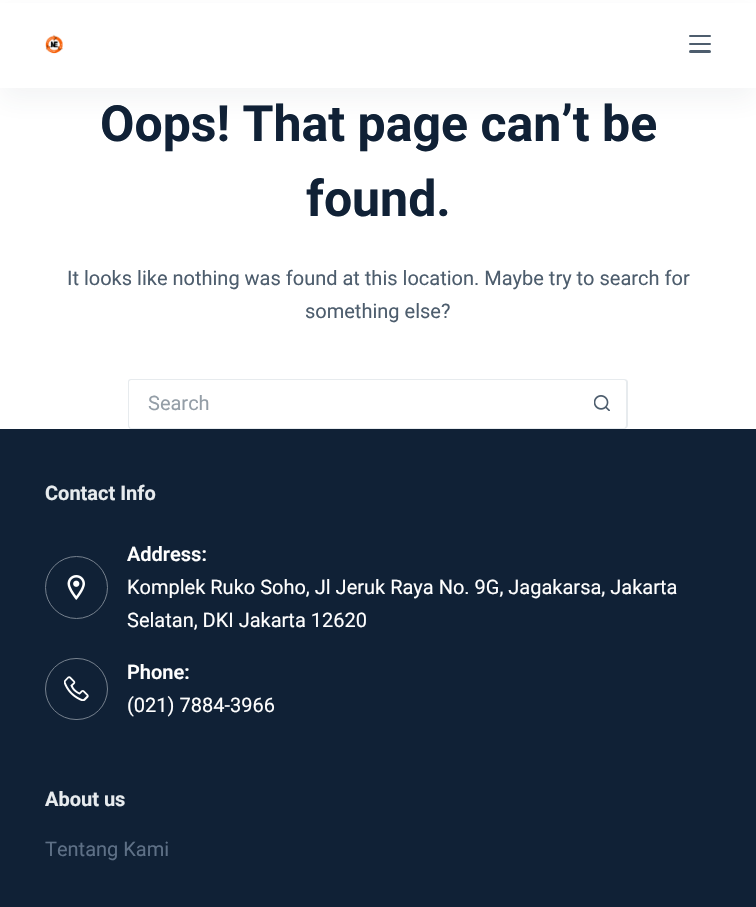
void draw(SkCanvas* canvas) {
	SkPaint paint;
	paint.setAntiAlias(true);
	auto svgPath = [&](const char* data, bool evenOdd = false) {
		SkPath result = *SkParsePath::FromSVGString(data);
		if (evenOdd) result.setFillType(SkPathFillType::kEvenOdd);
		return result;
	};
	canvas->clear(0xffffffff);
	paint.setColor(0x0f2b3d50);
	paint.setMaskFilter(SkMaskFilter::MakeBlur(kNormal_SkBlurStyle, 12.5));
	canvas->drawRect(SkRect::MakeXYWH(0, 13, 756, 87), paint);
	paint.setMaskFilter(nullptr);
	paint.setColor(0xffffffff);
	canvas->drawRect(SkRect::MakeXYWH(0, 3, 756, 85), paint);
	canvas->drawImageRect(SkImages::DeferredFromEncodedData(SkData::MakeFromFileName("img1.png")), SkRect::MakeXYWH(45, 34, 18, 20), SkSamplingOptions());
	paint.setColor(0xff4d5d6d);
	canvas->drawRoundRect(SkRect::MakeXYWH(689, 35, 22, 2), 1, 1, paint);
	canvas->drawRoundRect(SkRect::MakeXYWH(689, 43, 22, 2), 1, 1, paint);
	canvas->drawRoundRect(SkRect::MakeXYWH(689, 50, 22, 3), 1.5, 1.5, paint);
	SkFont f1(fontMgr->matchFamilyStyle("Roboto", SkFontStyle::Bold()), 50);
	f1.setSubpixel(true);
	paint.setColor(0xff102136);
	canvas->drawString("Oops! That page can’t be", 100, 141, f1, paint);
	canvas->drawString("found.", 306, 216, f1, paint);
	SkFont f2(fontMgr->matchFamilyStyle("Roboto", SkFontStyle::Normal()), 20);
	f2.setSubpixel(true);
	paint.setColor(0xff4d5d6d);
	canvas->drawString("It looks like nothing was found at this location. Maybe try to search for", 67, 285, f2, paint);
	canvas->drawString("something else?", 305, 318, f2, paint);
	paint.setColor(0xffe7ebee);
	canvas->drawPath(svgPath("M131 379H578V429H131C129 429 128 427 128 425V382C128 380 129 379 131 379ZM131 380H578V428H131C130 428 129 426 129 425V382C129 381 130 380 131 380Z", true), paint);
	paint.setColor(0xff949ea7);
	canvas->drawString("Search", 148, 410, f2, paint);
	paint.setColor(0xffe7ebee);
	canvas->drawPath(svgPath("M578 379H624C626 379 628 380 628 382V425C628 427 626 429 624 429H578ZM578 380H624C625 380 626 381 626 382V425C626 426 625 428 624 428H578Z", true), paint);
	canvas->drawImageRect(SkImages::DeferredFromEncodedData(SkData::MakeFromFileName("img2.png")), SkRect::MakeXYWH(594, 395, 16, 16), SkSamplingOptions());
	paint.setColor(0xff102136);
	canvas->drawRect(SkRect::MakeXYWH(0, 429, 756, 478), paint);
	SkFont f3(fontMgr->matchFamilyStyle("Roboto", SkFontStyle::Bold()), 20);
	f3.setSubpixel(true);
	paint.setColor(0xffe7ebee);
	canvas->drawString("Contact Info", 45, 500, f3, paint);
	paint.setStroke(true);
	paint.setStrokeWidth(1);
	paint.setColor(0xff75808d);
	canvas->drawCircle(76.5, 587.5, 31, paint);
	canvas->drawImageRect(SkImages::DeferredFromEncodedData(SkData::MakeFromFileName("img3.png")), SkRect::MakeXYWH(67, 575, 18, 25), SkSamplingOptions());
	SkFont f4(fontMgr->matchFamilyStyle("Roboto", SkFontStyle(600, SkFontStyle::kNormal_Width, SkFontStyle::kUpright_Slant)), 20);
	f4.setSubpixel(true);
	paint.setStroke(false);
	paint.setColor(0xffffffff);
	canvas->drawString("Address:", 127, 561, f4, paint);
	canvas->drawString("Komplek Ruko Soho, Jl Jeruk Raya No. 9G, Jagakarsa, Jakarta", 127, 594, f2, paint);
	canvas->drawString("Selatan, DKI Jakarta 12620", 127, 627, f2, paint);
	paint.setStroke(true);
	paint.setColor(0xff75808d);
	canvas->drawRoundRect(SkRect::MakeXYWH(45.5, 658.5, 62, 61), 30.5, 30.5, paint);
	canvas->drawImageRect(SkImages::DeferredFromEncodedData(SkData::MakeFromFileName("img4.png")), SkRect::MakeXYWH(64, 676, 25, 25), SkSamplingOptions());
	paint.setStroke(false);
	paint.setColor(0xffffffff);
	canvas->drawString("Phone:", 127, 679, f4, paint);
	canvas->drawString("(021) 7884-3966", 127, 712, f2, paint);
	paint.setColor(0xffe7ebee);
	canvas->drawString("About us", 45, 806, f3, paint);
	paint.setColor(0xff5e7086);
	canvas->drawString("Tentang Kami", 45, 856, f2, paint);
}
